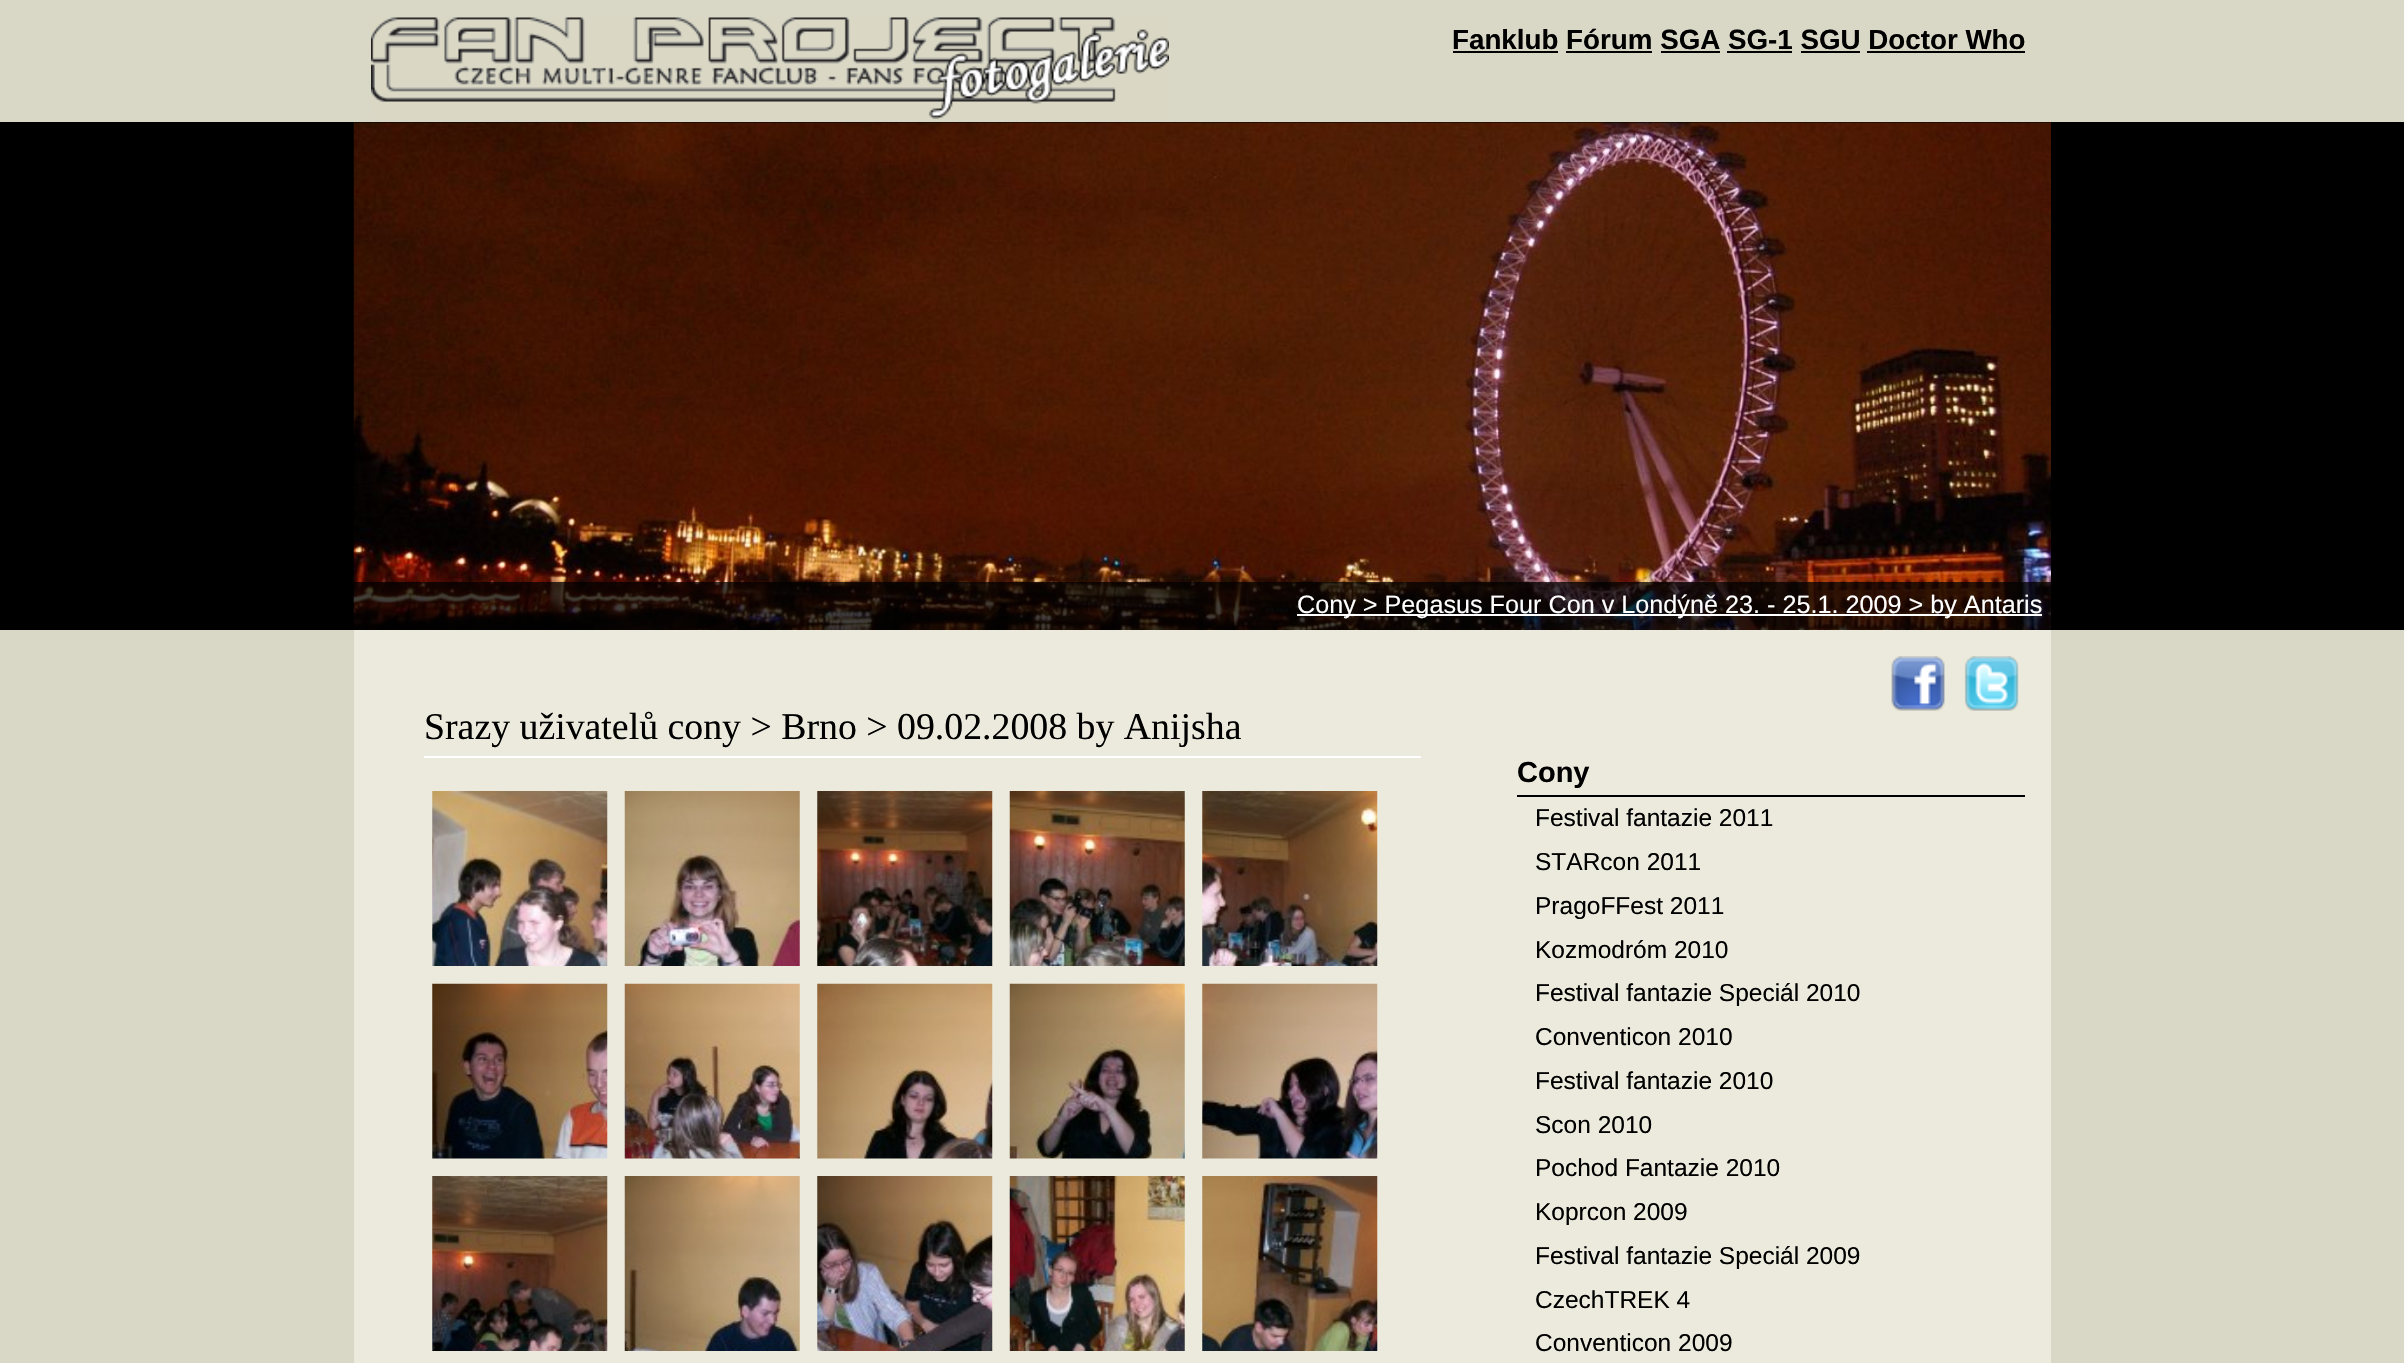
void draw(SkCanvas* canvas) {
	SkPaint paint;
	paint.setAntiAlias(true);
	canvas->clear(0xffd9d7c5);
	paint.setColor(0xff000000);
	canvas->drawRect(SkRect::MakeXYWH(0, 122, 2404, 508), paint);
	canvas->drawImageRect(SkImages::DeferredFromEncodedData(SkData::MakeFromFileName("img1.png")), SkRect::MakeXYWH(371, 17, 798, 102), SkSamplingOptions());
	SkFont f1(fontMgr->matchFamilyStyle("Liberation Sans", SkFontStyle::Bold()), 27.75);
	f1.setSubpixel(true);
	canvas->drawString("Fanklub Fórum SGA SG-1 SGU Doctor Who", 1452, 49, f1, paint);
	canvas->drawRect(SkRect::MakeXYWH(1453, 51, 105, 2), paint);
	canvas->drawRect(SkRect::MakeXYWH(1566, 51, 86, 2), paint);
	canvas->drawRect(SkRect::MakeXYWH(1661, 51, 59, 2), paint);
	canvas->drawRect(SkRect::MakeXYWH(1727, 51, 65, 2), paint);
	canvas->drawRect(SkRect::MakeXYWH(1801, 51, 59, 2), paint);
	canvas->drawRect(SkRect::MakeXYWH(1867, 51, 158, 2), paint);
	canvas->drawImageRect(SkImages::DeferredFromEncodedData(SkData::MakeFromFileName("img2.png")), SkRect::MakeXYWH(353, 122, 1698, 508), SkSamplingOptions());
	paint.setColor(0xbf000000);
	canvas->drawRect(SkRect::MakeXYWH(353, 582, 1698, 48), paint);
	paint.setColor(0xffffffff);
	canvas->drawRect(SkRect::MakeXYWH(1297, 614, 745, 2), paint);
	SkFont f2(fontMgr->matchFamilyStyle("Liberation Sans", SkFontStyle::Normal()), 25.2);
	f2.setSubpixel(true);
	canvas->drawString("Cony > Pegasus Four Con v Londýně 23. - 25.1. 2009 > by Antaris", 1297, 613, f2, paint);
	paint.setColor(0xffeceadc);
	canvas->drawRect(SkRect::MakeXYWH(354, 630, 1697, 733), paint);
	canvas->drawImageRect(SkImages::DeferredFromEncodedData(SkData::MakeFromFileName("img3.png")), SkRect::MakeXYWH(1891, 656, 54, 55), SkSamplingOptions());
	canvas->drawImageRect(SkImages::DeferredFromEncodedData(SkData::MakeFromFileName("img4.png")), SkRect::MakeXYWH(1964, 656, 55, 55), SkSamplingOptions());
	paint.setColor(0xffffffff);
	canvas->drawRect(SkRect::MakeXYWH(424, 756, 997, 2), paint);
	SkFont f3(fontMgr->matchFamilyStyle("Liberation Serif", SkFontStyle::Normal()), 37.8);
	f3.setSubpixel(true);
	paint.setColor(0xff000000);
	canvas->drawString("Srazy uživatelů cony > Brno > 09.02.2008 by Anijsha", 424, 739, f3, paint);
	canvas->drawImageRect(SkImages::DeferredFromEncodedData(SkData::MakeFromFileName("img5.png")), SkRect::MakeXYWH(432, 791, 176, 175), SkSamplingOptions());
	canvas->drawImageRect(SkImages::DeferredFromEncodedData(SkData::MakeFromFileName("img6.png")), SkRect::MakeXYWH(624, 791, 176, 175), SkSamplingOptions());
	canvas->drawImageRect(SkImages::DeferredFromEncodedData(SkData::MakeFromFileName("img7.png")), SkRect::MakeXYWH(817, 791, 176, 175), SkSamplingOptions());
	canvas->drawImageRect(SkImages::DeferredFromEncodedData(SkData::MakeFromFileName("img8.png")), SkRect::MakeXYWH(1009, 791, 176, 175), SkSamplingOptions());
	canvas->drawImageRect(SkImages::DeferredFromEncodedData(SkData::MakeFromFileName("img9.png")), SkRect::MakeXYWH(1202, 791, 176, 175), SkSamplingOptions());
	canvas->drawImageRect(SkImages::DeferredFromEncodedData(SkData::MakeFromFileName("img10.png")), SkRect::MakeXYWH(432, 983, 176, 176), SkSamplingOptions());
	canvas->drawImageRect(SkImages::DeferredFromEncodedData(SkData::MakeFromFileName("img11.png")), SkRect::MakeXYWH(624, 983, 176, 176), SkSamplingOptions());
	canvas->drawImageRect(SkImages::DeferredFromEncodedData(SkData::MakeFromFileName("img12.png")), SkRect::MakeXYWH(817, 983, 176, 176), SkSamplingOptions());
	canvas->drawImageRect(SkImages::DeferredFromEncodedData(SkData::MakeFromFileName("img13.png")), SkRect::MakeXYWH(1009, 983, 176, 176), SkSamplingOptions());
	canvas->drawImageRect(SkImages::DeferredFromEncodedData(SkData::MakeFromFileName("img14.png")), SkRect::MakeXYWH(1202, 983, 176, 176), SkSamplingOptions());
	canvas->drawImageRect(SkImages::DeferredFromEncodedData(SkData::MakeFromFileName("img15.png")), SkRect::MakeXYWH(432, 1176, 176, 175), SkSamplingOptions());
	canvas->drawImageRect(SkImages::DeferredFromEncodedData(SkData::MakeFromFileName("img16.png")), SkRect::MakeXYWH(624, 1176, 176, 175), SkSamplingOptions());
	canvas->drawImageRect(SkImages::DeferredFromEncodedData(SkData::MakeFromFileName("img17.png")), SkRect::MakeXYWH(817, 1176, 176, 175), SkSamplingOptions());
	canvas->drawImageRect(SkImages::DeferredFromEncodedData(SkData::MakeFromFileName("img18.png")), SkRect::MakeXYWH(1009, 1176, 176, 175), SkSamplingOptions());
	canvas->drawImageRect(SkImages::DeferredFromEncodedData(SkData::MakeFromFileName("img19.png")), SkRect::MakeXYWH(1202, 1176, 176, 175), SkSamplingOptions());
	canvas->drawRect(SkRect::MakeXYWH(1517, 795, 508, 2), paint);
	SkFont f4(fontMgr->matchFamilyStyle("Liberation Sans", SkFontStyle::Bold()), 29);
	f4.setSubpixel(true);
	canvas->drawString("Cony", 1517, 782, f4, paint);
	SkFont f5(fontMgr->matchFamilyStyle("Liberation Sans", SkFontStyle::Normal()), 24.5);
	f5.setSubpixel(true);
	canvas->drawString("Festival fantazie 2011", 1535, 826, f5, paint);
	canvas->drawString("STARcon 2011", 1535, 870, f5, paint);
	canvas->drawString("PragoFFest 2011", 1535, 914, f5, paint);
	canvas->drawString("Kozmodróm 2010", 1535, 958, f5, paint);
	canvas->drawString("Festival fantazie Speciál 2010", 1535, 1001, f5, paint);
	canvas->drawString("Conventicon 2010", 1535, 1045, f5, paint);
	canvas->drawString("Festival fantazie 2010", 1535, 1089, f5, paint);
	canvas->drawString("Scon 2010", 1535, 1133, f5, paint);
	canvas->drawString("Pochod Fantazie 2010", 1535, 1176, f5, paint);
	canvas->drawString("Koprcon 2009", 1535, 1220, f5, paint);
	canvas->drawString("Festival fantazie Speciál 2009", 1535, 1264, f5, paint);
	canvas->drawString("CzechTREK 4", 1535, 1308, f5, paint);
	canvas->drawString("Conventicon 2009", 1535, 1351, f5, paint);
}
